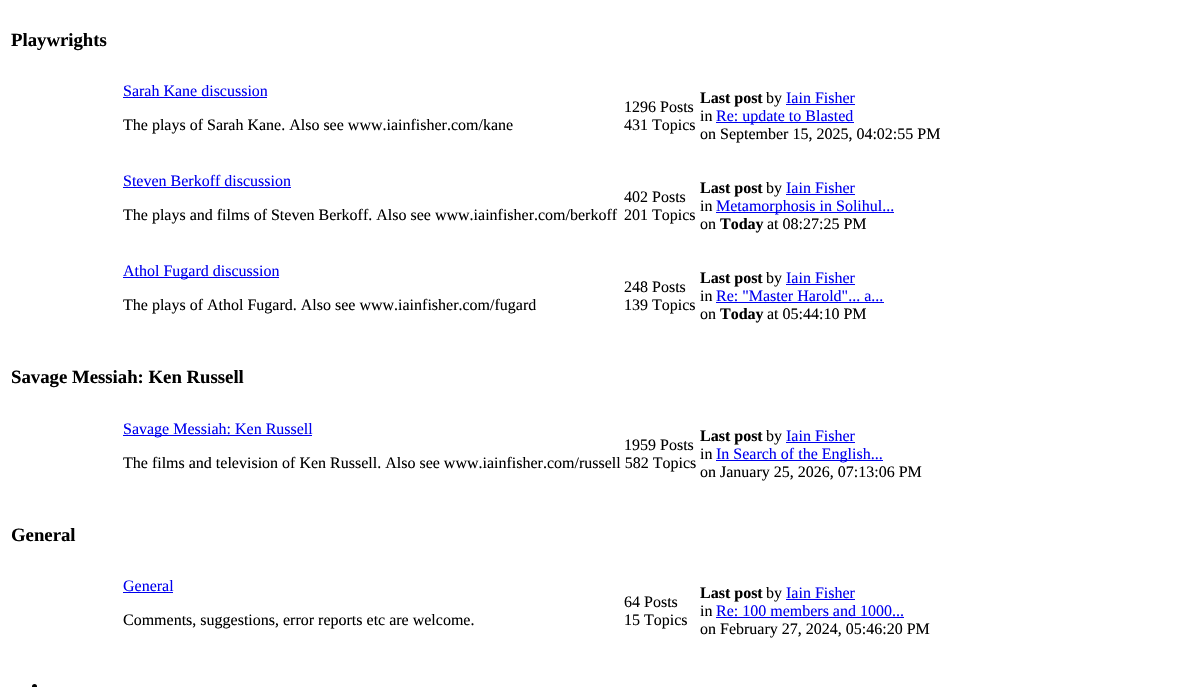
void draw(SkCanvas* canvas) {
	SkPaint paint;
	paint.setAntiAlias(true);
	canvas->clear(0xffffffff);
	SkFont f1(fontMgr->matchFamilyStyle("Liberation Serif", SkFontStyle::Bold()), 18.75);
	f1.setSubpixel(true);
	paint.setColor(0xff000000);
	canvas->drawString("Playwrights", 11, 46, f1, paint);
	SkFont f2(fontMgr->matchFamilyStyle("Liberation Serif", SkFontStyle::Normal()), 16);
	f2.setSubpixel(true);
	paint.setColor(0xff0000ee);
	canvas->drawString("Sarah Kane discussion", 123, 96, f2, paint);
	canvas->drawRect(SkRect::MakeXYWH(123, 97, 144, 1), paint);
	paint.setColor(0xff000000);
	canvas->drawString("The plays of Sarah Kane. Also see www.iainfisher.com/kane", 123, 130, f2, paint);
	canvas->drawString("1296 Posts", 624, 112, f2, paint);
	canvas->drawString("431 Topics", 624, 130, f2, paint);
	SkFont f3(fontMgr->matchFamilyStyle("Liberation Serif", SkFontStyle::Bold()), 16);
	f3.setSubpixel(true);
	canvas->drawString("Last post", 700, 103, f3, paint);
	canvas->drawString("by", 766, 103, f2, paint);
	paint.setColor(0xff0000ee);
	canvas->drawString("Iain Fisher", 786, 103, f2, paint);
	canvas->drawRect(SkRect::MakeXYWH(786, 104, 69, 1), paint);
	paint.setColor(0xff000000);
	canvas->drawString("in", 700, 121, f2, paint);
	paint.setColor(0xff0000ee);
	canvas->drawRect(SkRect::MakeXYWH(716, 122, 138, 1), paint);
	canvas->drawString("Re: update to Blasted", 716, 121, f2, paint);
	paint.setColor(0xff000000);
	canvas->drawString("on September 15, 2025, 04:02:55 PM", 700, 139, f2, paint);
	paint.setColor(0xff0000ee);
	canvas->drawString("Steven Berkoff discussion", 123, 186, f2, paint);
	canvas->drawRect(SkRect::MakeXYWH(123, 187, 168, 1), paint);
	paint.setColor(0xff000000);
	canvas->drawString("The plays and films of Steven Berkoff. Also see www.iainfisher.com/berkoff", 123, 220, f2, paint);
	canvas->drawString("402 Posts", 624, 202, f2, paint);
	canvas->drawString("201 Topics", 624, 220, f2, paint);
	canvas->drawString("Last post", 700, 193, f3, paint);
	canvas->drawString("by", 766, 193, f2, paint);
	paint.setColor(0xff0000ee);
	canvas->drawString("Iain Fisher", 786, 193, f2, paint);
	canvas->drawRect(SkRect::MakeXYWH(786, 194, 69, 1), paint);
	paint.setColor(0xff000000);
	canvas->drawString("in", 700, 211, f2, paint);
	paint.setColor(0xff0000ee);
	canvas->drawRect(SkRect::MakeXYWH(716, 212, 178, 1), paint);
	canvas->drawString("Metamorphosis in Solihul...", 716, 211, f2, paint);
	paint.setColor(0xff000000);
	canvas->drawString("on", 700, 229, f2, paint);
	canvas->drawString("Today", 720, 229, f3, paint);
	canvas->drawString("at 08:27:25 PM", 767, 229, f2, paint);
	paint.setColor(0xff0000ee);
	canvas->drawRect(SkRect::MakeXYWH(123, 277, 156, 1), paint);
	canvas->drawString("Athol Fugard discussion", 123, 276, f2, paint);
	paint.setColor(0xff000000);
	canvas->drawString("The plays of Athol Fugard. Also see www.iainfisher.com/fugard", 123, 310, f2, paint);
	canvas->drawString("248 Posts", 624, 292, f2, paint);
	canvas->drawString("139 Topics", 624, 310, f2, paint);
	canvas->drawString("Last post", 700, 283, f3, paint);
	canvas->drawString("by", 766, 283, f2, paint);
	paint.setColor(0xff0000ee);
	canvas->drawString("Iain Fisher", 786, 283, f2, paint);
	canvas->drawRect(SkRect::MakeXYWH(786, 284, 69, 1), paint);
	paint.setColor(0xff000000);
	canvas->drawString("in", 700, 301, f2, paint);
	paint.setColor(0xff0000ee);
	canvas->drawString("Re: \"Master Harold\"... a...", 716, 301, f2, paint);
	canvas->drawRect(SkRect::MakeXYWH(716, 302, 168, 1), paint);
	paint.setColor(0xff000000);
	canvas->drawString("on", 700, 319, f2, paint);
	canvas->drawString("Today", 720, 319, f3, paint);
	canvas->drawString("at 05:44:10 PM", 767, 319, f2, paint);
	canvas->drawString("Savage Messiah: Ken Russell", 11, 383, f1, paint);
	paint.setColor(0xff0000ee);
	canvas->drawRect(SkRect::MakeXYWH(123, 435, 189, 1), paint);
	canvas->drawString("Savage Messiah: Ken Russell", 123, 434, f2, paint);
	paint.setColor(0xff000000);
	canvas->drawString("The films and television of Ken Russell. Also see www.iainfisher.com/russell 582 Topics", 123, 468, f2, paint);
	canvas->drawString("Last post", 700, 441, f3, paint);
	canvas->drawString("by", 766, 441, f2, paint);
	paint.setColor(0xff0000ee);
	canvas->drawString("Iain Fisher", 786, 441, f2, paint);
	canvas->drawRect(SkRect::MakeXYWH(786, 442, 69, 1), paint);
	paint.setColor(0xff000000);
	canvas->drawString("in", 700, 459, f2, paint);
	paint.setColor(0xff0000ee);
	canvas->drawRect(SkRect::MakeXYWH(716, 460, 167, 1), paint);
	canvas->drawString("In Search of the English...", 716, 459, f2, paint);
	paint.setColor(0xff000000);
	canvas->drawString("on January 25, 2026, 07:13:06 PM", 700, 477, f2, paint);
	canvas->drawString("1959 Posts", 624, 450, f2, paint);
	canvas->drawString("General", 11, 541, f1, paint);
	paint.setColor(0xff0000ee);
	canvas->drawString("General", 123, 591, f2, paint);
	canvas->drawRect(SkRect::MakeXYWH(123, 592, 50, 1), paint);
	paint.setColor(0xff000000);
	canvas->drawString("Comments, suggestions, error reports etc are welcome.", 123, 625, f2, paint);
	canvas->drawString("64 Posts", 624, 607, f2, paint);
	canvas->drawString("15 Topics", 624, 625, f2, paint);
	canvas->drawString("Last post", 700, 598, f3, paint);
	canvas->drawString("by", 766, 598, f2, paint);
	paint.setColor(0xff0000ee);
	canvas->drawString("Iain Fisher", 786, 598, f2, paint);
	canvas->drawRect(SkRect::MakeXYWH(786, 599, 69, 1), paint);
	paint.setColor(0xff000000);
	canvas->drawString("in", 700, 616, f2, paint);
	paint.setColor(0xff0000ee);
	canvas->drawString("Re: 100 members and 1000...", 716, 616, f2, paint);
	canvas->drawRect(SkRect::MakeXYWH(716, 617, 188, 1), paint);
	paint.setColor(0xff000000);
	canvas->drawString("on February 27, 2024, 05:46:20 PM", 700, 634, f2, paint);
	canvas->drawCircle(34.5, 686.5, 2.5, paint);
}
